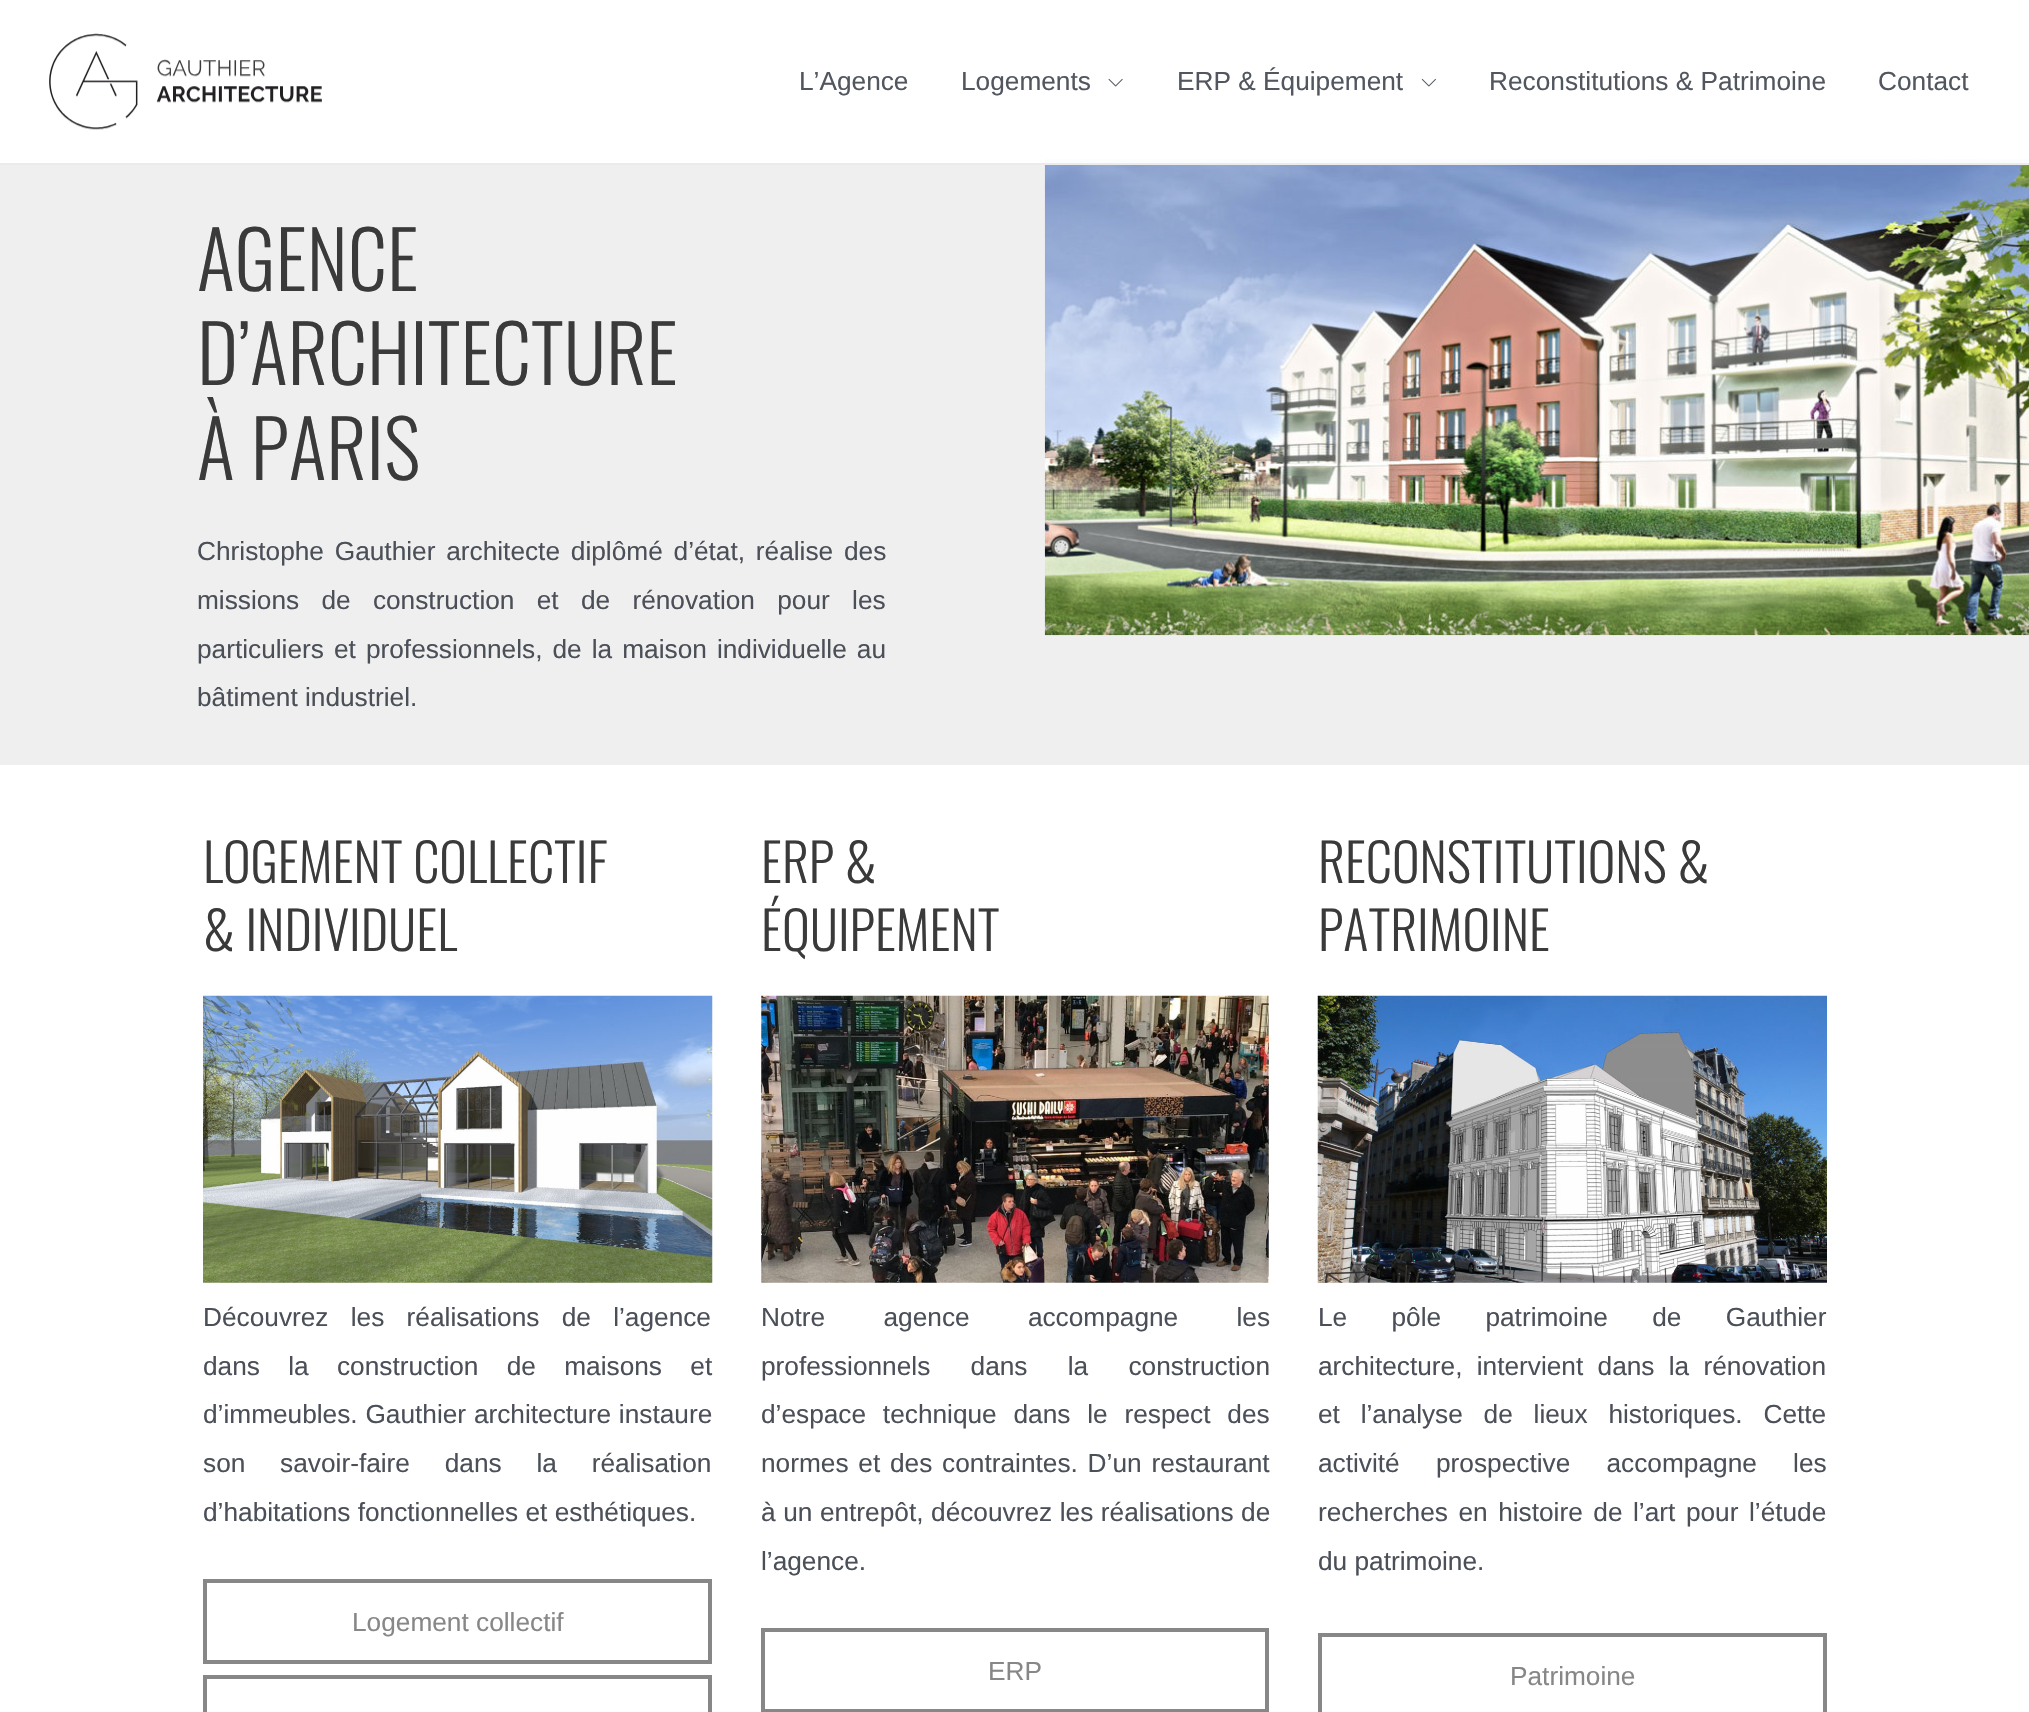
void draw(SkCanvas* canvas) {
	SkPaint paint;
	paint.setAntiAlias(true);
	auto spacedText = [&](const char* s, float x, float y, const SkFont& font, const SkPaint& ink, float letter, float word) {
		std::vector<SkGlyphID> glyphs(font.countText(s, strlen(s), SkTextEncoding::kUTF8));
		std::vector<float> xs(glyphs.size());
		font.textToGlyphs(s, strlen(s), SkTextEncoding::kUTF8, glyphs);
		font.getXPos(glyphs, xs, x);
		float extra = 0;
		for (size_t i = 0; i < glyphs.size(); i++) {
			xs[i] += extra;
			extra += letter + word * (glyphs[i] == font.unicharToGlyph(' '));
		}
		canvas->drawTextBlob(SkTextBlob::MakeFromPosHGlyphs(glyphs, xs, y, font), 0, 0, ink);
	};
	canvas->clear(0xffffffff);
	paint.setColor(0xffefefef);
	canvas->drawRect(SkRect::MakeXYWH(0, 159, 2029, 606), paint);
	canvas->drawImageRect(SkImages::DeferredFromEncodedData(SkData::MakeFromFileName("img4.png")), SkRect::MakeXYWH(1044, 159, 985, 477), SkSamplingOptions());
	paint.setColor(0xf5ffffff);
	canvas->drawRect(SkRect::MakeXYWH(0, 159, 2029, 6), paint);
	paint.setColor(0xf5eaeaea);
	canvas->drawRect(SkRect::MakeXYWH(0, 163, 2029, 2), paint);
	canvas->drawImageRect(SkImages::DeferredFromEncodedData(SkData::MakeFromFileName("img1.png")), SkRect::MakeXYWH(49, 33, 273, 97), SkSamplingOptions());
	SkFont f1(fontMgr->matchFamilyStyle("Liberation Sans", SkFontStyle::Normal()), 26.25);
	f1.setSubpixel(true);
	paint.setColor(0xff52565f);
	canvas->drawString("L’Agence", 799, 90, f1, paint);
	canvas->drawString("Logements", 961, 90, f1, paint);
	canvas->drawImageRect(SkImages::DeferredFromEncodedData(SkData::MakeFromFileName("img2.png")), SkRect::MakeXYWH(1108, 78, 15, 9), SkSamplingOptions());
	canvas->drawString("ERP & Équipement", 1177, 90, f1, paint);
	canvas->drawImageRect(SkImages::DeferredFromEncodedData(SkData::MakeFromFileName("img3.png")), SkRect::MakeXYWH(1421, 78, 15, 9), SkSamplingOptions());
	canvas->drawString("Reconstitutions & Patrimoine", 1489, 90, f1, paint);
	canvas->drawString("Contact", 1878, 90, f1, paint);
	SkFont f2(fontMgr->matchFamilyStyle("Oswald", SkFontStyle(300, SkFontStyle::kNormal_Width, SkFontStyle::kUpright_Slant)), 78.75);
	f2.setSubpixel(true);
	paint.setColor(0xff3a3a3a);
	canvas->drawString("AGENCE", 197, 291, f2, paint);
	canvas->drawString("D’ARCHITECTURE", 197, 385, f2, paint);
	canvas->drawString("À PARIS", 197, 480, f2, paint);
	paint.setColor(0xff4b4f58);
	spacedText("Christophe Gauthier architecte diplômé d’état, réalise des", 197, 560, f1, paint, 0, 3.5);
	spacedText("missions de construction et de rénovation pour les", 197, 609, f1, paint, 0, 15);
	spacedText("particuliers et professionnels, de la maison individuelle au", 197, 658, f1, paint, 0, 2.75);
	canvas->drawString("bâtiment industriel.", 197, 706, f1, paint);
	SkFont f3(fontMgr->matchFamilyStyle("Oswald", SkFontStyle(300, SkFontStyle::kNormal_Width, SkFontStyle::kUpright_Slant)), 52.5);
	f3.setSubpixel(true);
	paint.setColor(0xff3a3a3a);
	canvas->drawString("LOGEMENT COLLECTIF", 203, 883, f3, paint);
	canvas->drawString("& INDIVIDUEL", 203, 951, f3, paint);
	canvas->drawImageRect(SkImages::DeferredFromEncodedData(SkData::MakeFromFileName("img5.png")), SkRect::MakeXYWH(203, 995, 510, 288), SkSamplingOptions());
	paint.setColor(0xff4b4f58);
	spacedText("Découvrez les réalisations de l’agence", 203, 1326, f1, paint, 0, 15);
	spacedText("dans la construction de maisons et", 203, 1375, f1, paint, 0, 21);
	spacedText("d’immeubles. Gauthier architecture instaure", 203, 1423, f1, paint, 0, 0.5);
	spacedText("son savoir-faire dans la réalisation", 203, 1472, f1, paint, 0, 27.5);
	canvas->drawString("d’habitations fonctionnelles et esthétiques.", 203, 1521, f1, paint);
	paint.setStroke(true);
	paint.setStrokeWidth(4);
	paint.setColor(0xff878787);
	canvas->drawRect(SkRect::MakeXYWH(205, 1581, 505, 81), paint);
	paint.setStroke(false);
	canvas->drawString("Logement collectif", 352, 1631, f1, paint);
	paint.setStroke(true);
	canvas->drawRect(SkRect::MakeXYWH(205, 1677, 505, 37), paint);
	paint.setStroke(false);
	paint.setColor(0xff3a3a3a);
	canvas->drawString("ERP &", 761, 883, f3, paint);
	canvas->drawString("ÉQUIPEMENT", 761, 951, f3, paint);
	canvas->drawImageRect(SkImages::DeferredFromEncodedData(SkData::MakeFromFileName("img6.png")), SkRect::MakeXYWH(761, 995, 508, 288), SkSamplingOptions());
	paint.setColor(0xff4b4f58);
	spacedText("Notre agence accompagne les", 761, 1326, f1, paint, 0, 51);
	spacedText("professionnels dans la construction", 761, 1375, f1, paint, 0, 33);
	spacedText("d’espace technique dans le respect des", 761, 1423, f1, paint, 0, 9.5);
	spacedText("normes et des contraintes. D’un restaurant", 761, 1472, f1, paint, 0, 2.5);
	spacedText("à un entrepôt, découvrez les réalisations de", 761, 1521, f1, paint, 0, 0.25);
	canvas->drawString("l’agence.", 761, 1570, f1, paint);
	paint.setStroke(true);
	paint.setColor(0xff878787);
	canvas->drawRect(SkRect::MakeXYWH(763, 1630, 504, 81), paint);
	paint.setStroke(false);
	canvas->drawString("ERP", 988, 1680, f1, paint);
	paint.setColor(0xff3a3a3a);
	canvas->drawString("RECONSTITUTIONS &", 1318, 883, f3, paint);
	canvas->drawString("PATRIMOINE", 1318, 951, f3, paint);
	canvas->drawImageRect(SkImages::DeferredFromEncodedData(SkData::MakeFromFileName("img7.png")), SkRect::MakeXYWH(1317, 995, 510, 288), SkSamplingOptions());
	paint.setColor(0xff4b4f58);
	spacedText("Le pôle patrimoine de Gauthier", 1318, 1326, f1, paint, 0, 37);
	spacedText("architecture, intervient dans la rénovation", 1318, 1375, f1, paint, 0, 7);
	spacedText("et l’analyse de lieux historiques. Cette", 1318, 1423, f1, paint, 0, 13.5);
	spacedText("activité prospective accompagne les", 1318, 1472, f1, paint, 0, 29);
	spacedText("recherches en histoire de l’art pour l’étude", 1318, 1521, f1, paint, 0, 3.25);
	canvas->drawString("du patrimoine.", 1318, 1570, f1, paint);
	paint.setStroke(true);
	paint.setColor(0xff878787);
	canvas->drawRect(SkRect::MakeXYWH(1320, 1635, 505, 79), paint);
	paint.setStroke(false);
	canvas->drawString("Patrimoine", 1510, 1685, f1, paint);
}
